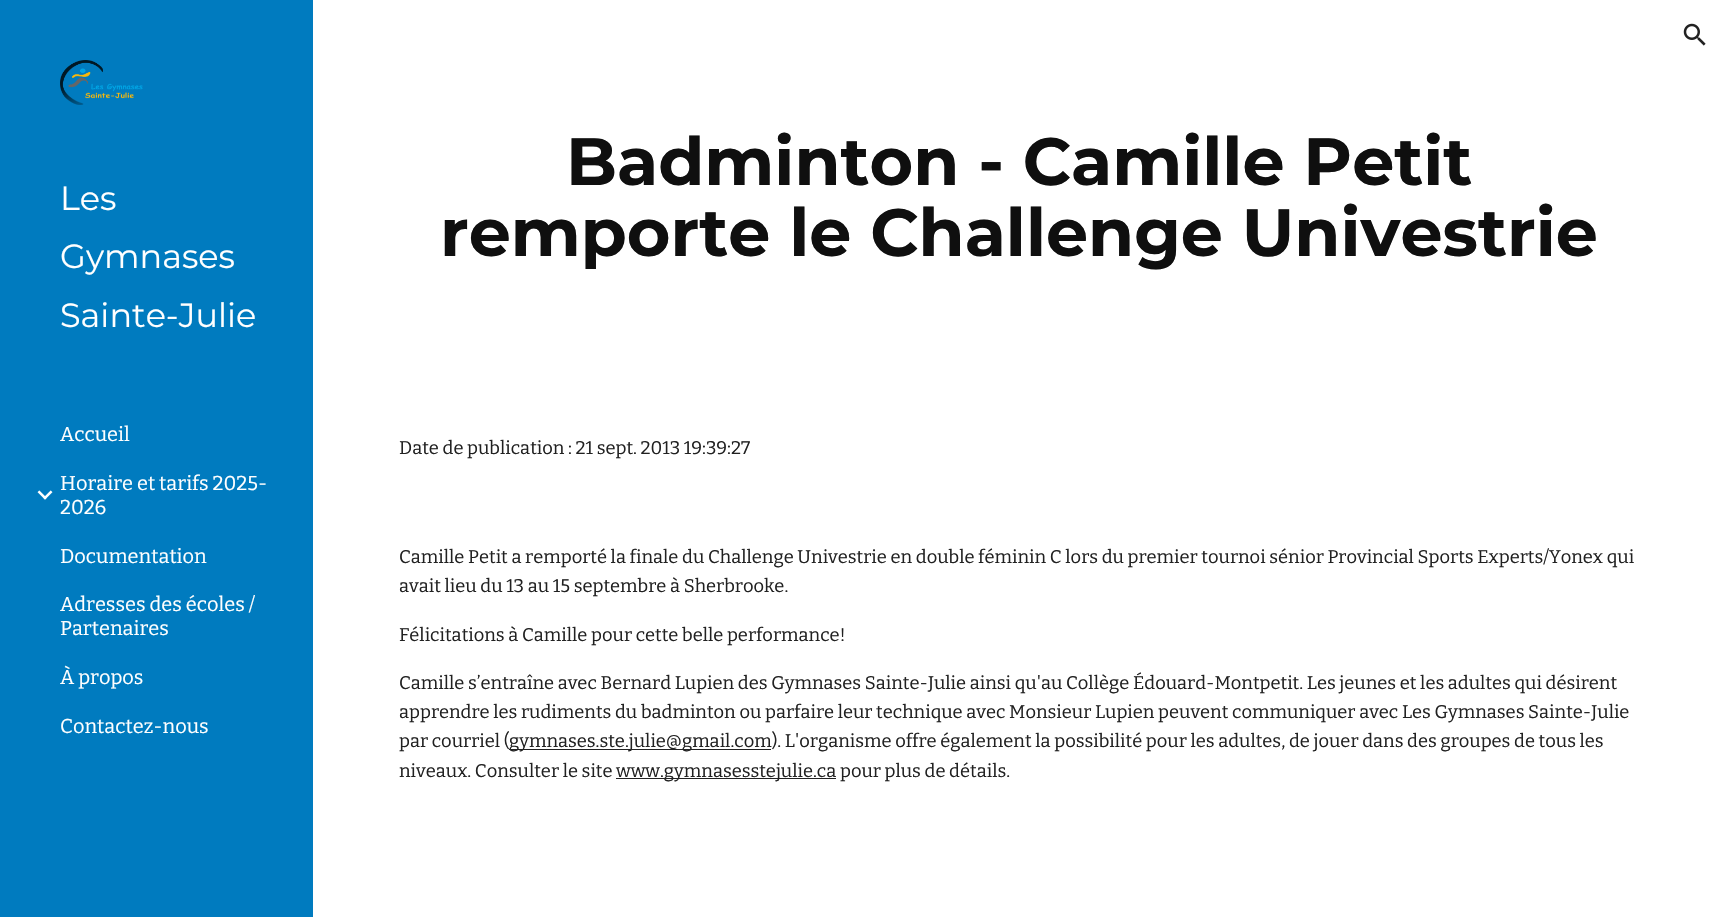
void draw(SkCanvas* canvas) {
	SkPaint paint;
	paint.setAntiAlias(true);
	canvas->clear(0xffffffff);
	canvas->drawImageRect(SkImages::DeferredFromEncodedData(SkData::MakeFromFileName("img1.png")), SkRect::MakeXYWH(1683, 23, 23, 23), SkSamplingOptions());
	paint.setColor(0xff007bbf);
	canvas->drawRect(SkRect::MakeXYWH(0, 0, 313, 917), paint);
	canvas->drawImageRect(SkImages::DeferredFromEncodedData(SkData::MakeFromFileName("img2.png")), SkRect::MakeXYWH(60, 60, 83, 45), SkSamplingOptions());
	SkFont f1(fontMgr->matchFamilyStyle("Montserrat", SkFontStyle::Normal()), 33.5);
	f1.setSubpixel(true);
	paint.setColor(0xffffffff);
	canvas->drawString("Les", 60, 210, f1, paint);
	canvas->drawString("Gymnases", 60, 268, f1, paint);
	canvas->drawString("Sainte-Julie", 60, 327, f1, paint);
	SkFont f2(fontMgr->matchFamilyStyle("Bitter", SkFontStyle::Normal()), 20);
	f2.setSubpixel(true);
	canvas->drawString("Accueil", 60, 441, f2, paint);
	canvas->drawImageRect(SkImages::DeferredFromEncodedData(SkData::MakeFromFileName("img3.png")), SkRect::MakeXYWH(37, 490, 16, 10), SkSamplingOptions());
	canvas->drawString("Horaire et tarifs 2025-", 60, 490, f2, paint);
	canvas->drawString("2026", 60, 514, f2, paint);
	canvas->drawString("Documentation", 60, 563, f2, paint);
	canvas->drawString("Adresses des écoles /", 60, 611, f2, paint);
	canvas->drawString("Partenaires", 60, 635, f2, paint);
	canvas->drawString("À propos", 60, 684, f2, paint);
	canvas->drawString("Contactez-nous", 60, 733, f2, paint);
	SkFont f3(fontMgr->matchFamilyStyle("Montserrat", SkFontStyle::Bold()), 66.7);
	f3.setSubpixel(true);
	paint.setColor(0xff0f0f0f);
	canvas->drawString("Badminton - Camille Petit", 566, 185, f3, paint);
	canvas->drawString("remporte le Challenge Univestrie", 440, 256, f3, paint);
	SkFont f4(fontMgr->matchFamilyStyle("Bitter", SkFontStyle::Normal()), 18.33);
	f4.setSubpixel(true);
	paint.setColor(0xff212121);
	canvas->drawString("Date de publication : 21 sept. 2013 19:39:27", 399, 454, f4, paint);
	canvas->drawString("Camille Petit a remporté la finale du Challenge Univestrie en double féminin C lors du premier tournoi sénior Provincial Sports Experts/Yonex qui", 399, 563, f4, paint);
	canvas->drawString("avait lieu du 13 au 15 septembre à Sherbrooke.", 399, 592, f4, paint);
	canvas->drawString("Félicitations à Camille pour cette belle performance!", 399, 641, f4, paint);
	canvas->drawString("Camille s’entraîne avec Bernard Lupien des Gymnases Sainte-Julie ainsi qu'au Collège Édouard-Montpetit. Les jeunes et les adultes qui désirent", 399, 689, f4, paint);
	canvas->drawString("apprendre les rudiments du badminton ou parfaire leur technique avec Monsieur Lupien peuvent communiquer avec Les Gymnases Sainte-Julie", 399, 718, f4, paint);
	canvas->drawString("par courriel (", 399, 747, f4, paint);
	canvas->drawRect(SkRect::MakeXYWH(509, 749, 262, 1), paint);
	canvas->drawString("gymnases.ste.julie@gmail.com). L'organisme offre également la possibilité pour les adultes, de jouer dans des groupes de tous les", 509, 747, f4, paint);
	canvas->drawString("niveaux. Consulter le site", 399, 777, f4, paint);
	canvas->drawRect(SkRect::MakeXYWH(616, 778, 220, 1), paint);
	canvas->drawString("www.gymnasesstejulie.ca pour plus de détails.", 616, 777, f4, paint);
}
